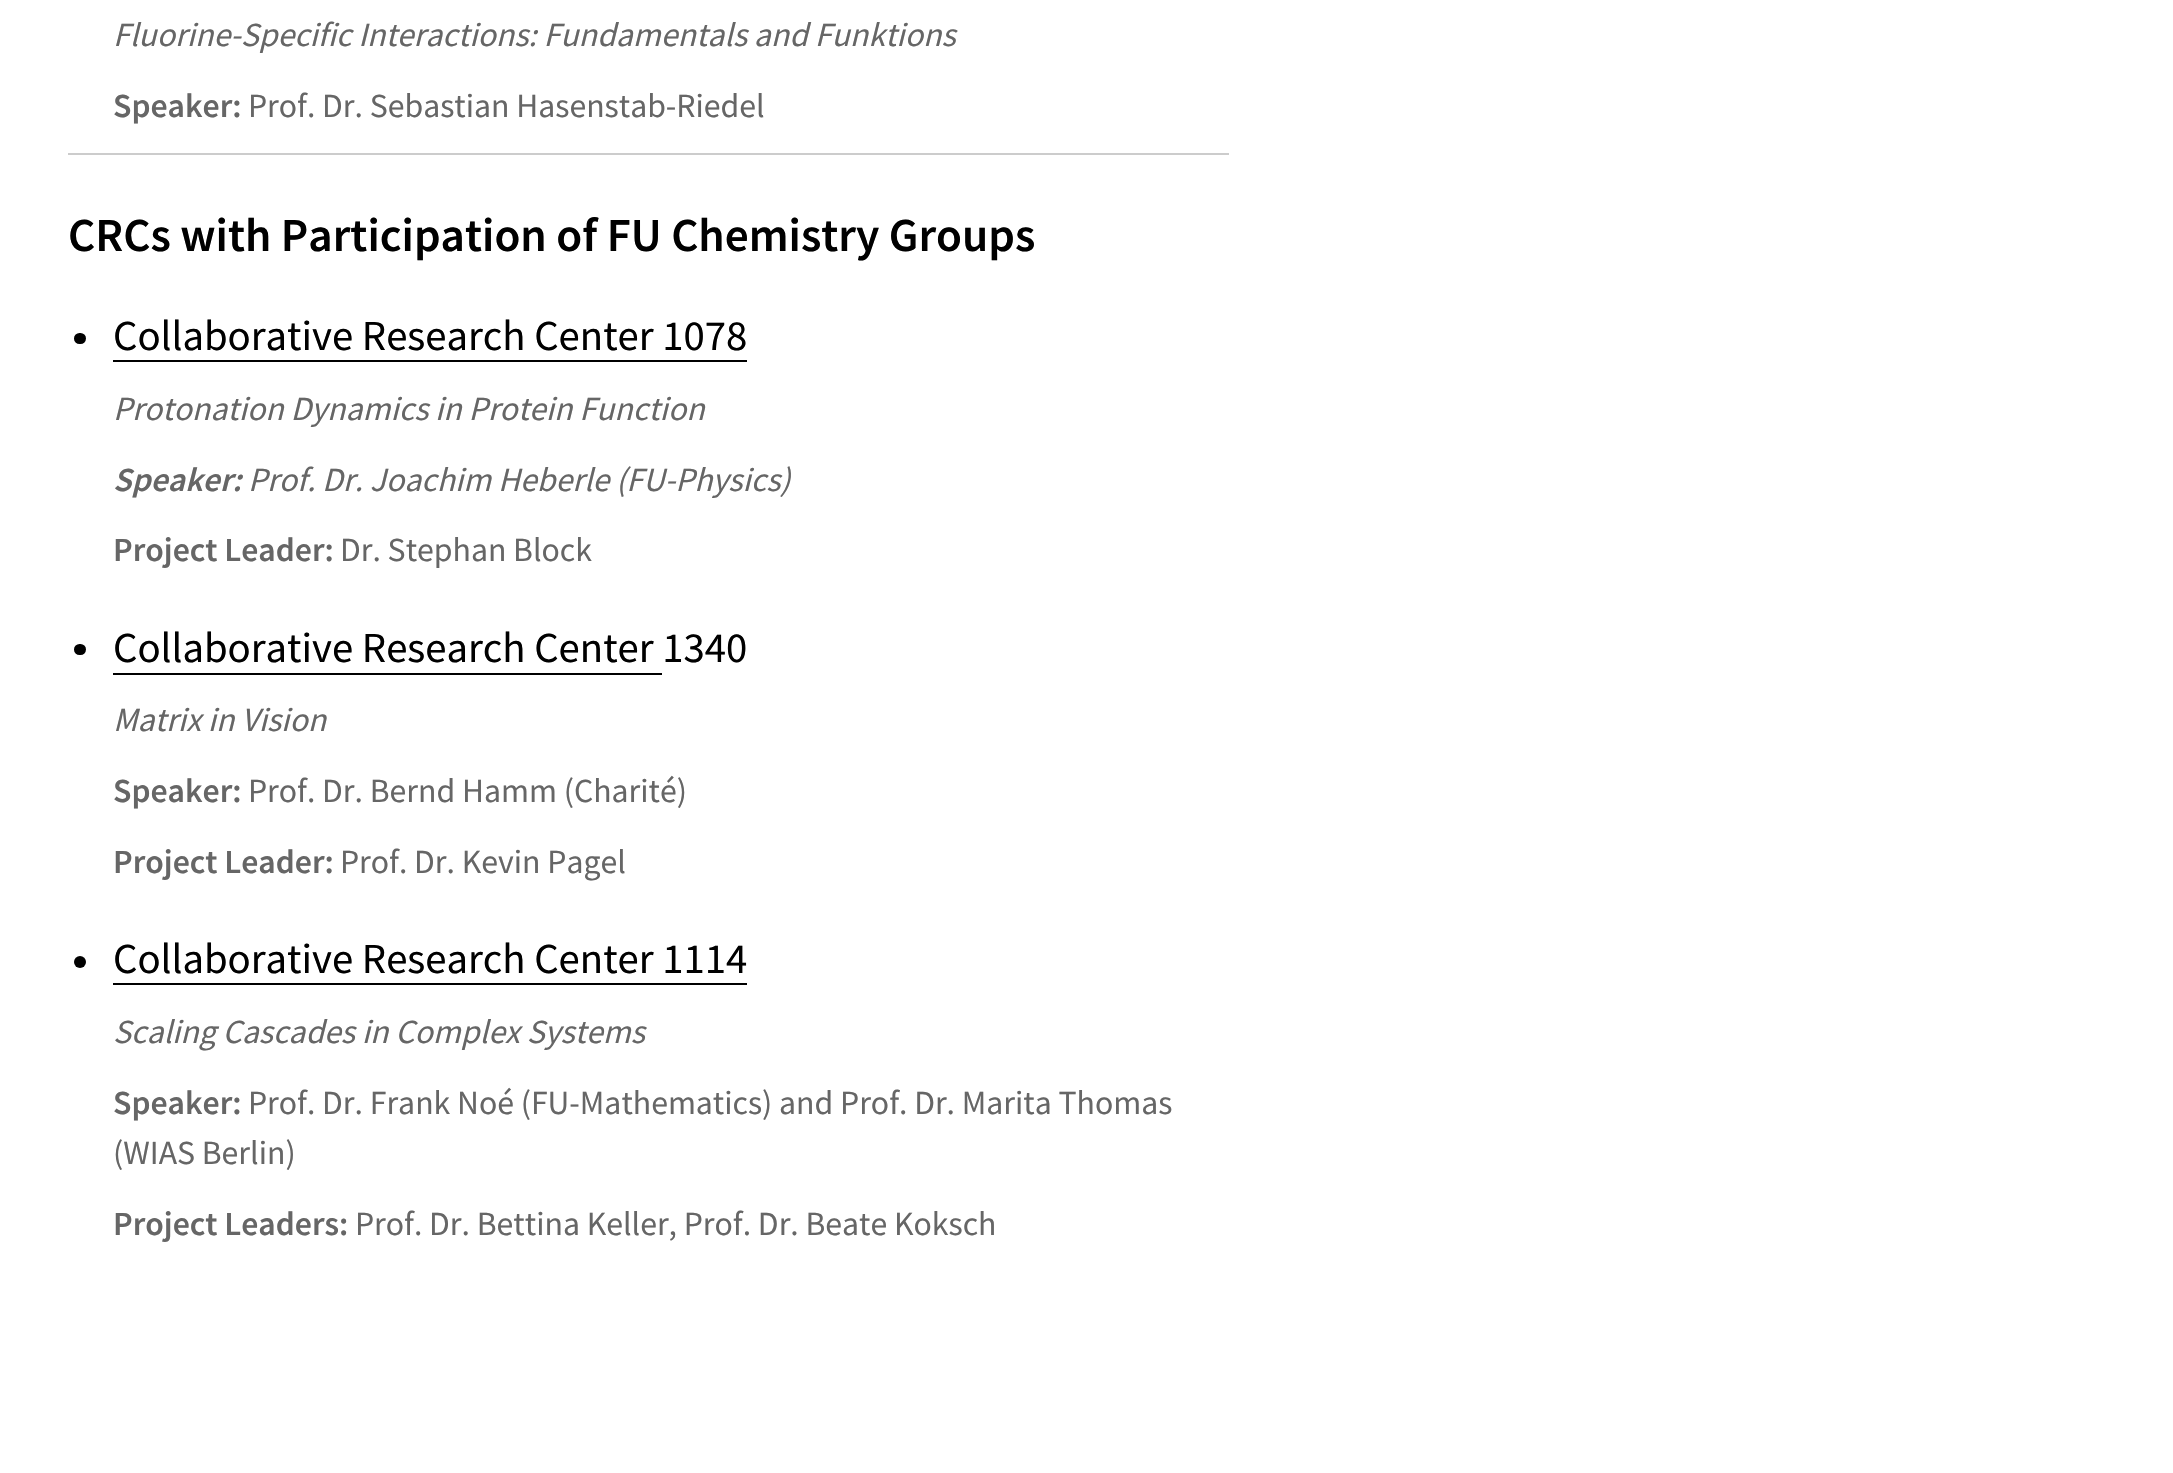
void draw(SkCanvas* canvas) {
	SkPaint paint;
	paint.setAntiAlias(true);
	canvas->clear(0xffffffff);
	SkFont f1(fontMgr->matchFamilyStyle("Source Sans Pro", SkFontStyle::Italic()), 33.75);
	f1.setSubpixel(true);
	paint.setColor(0xff666666);
	canvas->drawString("Fluorine-Specific Interactions: Fundamentals and Funktions", 113, 46, f1, paint);
	SkFont f2(fontMgr->matchFamilyStyle("Source Sans Pro", SkFontStyle(600, SkFontStyle::kNormal_Width, SkFontStyle::kUpright_Slant)), 33.75);
	f2.setSubpixel(true);
	canvas->drawString("Speaker:", 113, 117, f2, paint);
	SkFont f3(fontMgr->matchFamilyStyle("Source Sans Pro", SkFontStyle::Normal()), 33.75);
	f3.setSubpixel(true);
	canvas->drawString("Prof. Dr. Sebastian Hasenstab-Riedel", 248, 117, f3, paint);
	paint.setColor(0xffcccccc);
	canvas->drawRect(SkRect::MakeXYWH(68, 153, 1161, 2), paint);
	SkFont f4(fontMgr->matchFamilyStyle("Source Sans Pro", SkFontStyle(600, SkFontStyle::kNormal_Width, SkFontStyle::kUpright_Slant)), 47.25);
	f4.setSubpixel(true);
	paint.setColor(0xff000000);
	canvas->drawString("CRCs with Participation of FU Chemistry Groups", 68, 251, f4, paint);
	canvas->drawRoundRect(SkRect::MakeXYWH(74, 333, 12, 11), 5.5, 5.5, paint);
	SkFont f5(fontMgr->matchFamilyStyle("Source Sans Pro", SkFontStyle::Normal()), 42.75);
	f5.setSubpixel(true);
	canvas->drawString("Collaborative Research Center 1078", 113, 350, f5, paint);
	canvas->drawRect(SkRect::MakeXYWH(113, 360, 634, 2), paint);
	paint.setColor(0xff666666);
	canvas->drawString("Protonation Dynamics in Protein Function", 113, 420, f1, paint);
	SkFont f6(fontMgr->matchFamilyStyle("Source Sans Pro", SkFontStyle(600, SkFontStyle::kNormal_Width, SkFontStyle::kItalic_Slant)), 33.75);
	f6.setSubpixel(true);
	canvas->drawString("Speaker:", 113, 491, f6, paint);
	canvas->drawString("Prof. Dr. Joachim Heberle (FU-Physics)", 248, 491, f1, paint);
	canvas->drawString("Project Leader:", 113, 561, f2, paint);
	canvas->drawString("Dr. Stephan Block", 340, 561, f3, paint);
	paint.setColor(0xff000000);
	canvas->drawRoundRect(SkRect::MakeXYWH(74, 644, 12, 11), 5.5, 5.5, paint);
	canvas->drawString("Collaborative Research Center 1340", 113, 662, f5, paint);
	canvas->drawRect(SkRect::MakeXYWH(113, 673, 549, 2), paint);
	paint.setColor(0xff666666);
	canvas->drawString("Matrix in Vision", 113, 731, f1, paint);
	canvas->drawString("Speaker:", 113, 802, f2, paint);
	canvas->drawString("Prof. Dr. Bernd Hamm (Charité)", 248, 802, f3, paint);
	canvas->drawString("Project Leader:", 113, 873, f2, paint);
	canvas->drawString("Prof. Dr. Kevin Pagel", 340, 873, f3, paint);
	paint.setColor(0xff000000);
	canvas->drawCircle(80, 962, 6, paint);
	canvas->drawString("Collaborative Research Center 1114", 113, 973, f5, paint);
	canvas->drawRect(SkRect::MakeXYWH(113, 983, 634, 2), paint);
	paint.setColor(0xff666666);
	canvas->drawString("Scaling Cascades in Complex Systems", 113, 1043, f1, paint);
	canvas->drawString("Speaker:", 113, 1114, f2, paint);
	canvas->drawString("Prof. Dr. Frank Noé (FU-Mathematics) and Prof. Dr. Marita Thomas", 248, 1114, f3, paint);
	canvas->drawString("(WIAS Berlin)", 113, 1164, f3, paint);
	canvas->drawString("Project Leaders:", 113, 1235, f2, paint);
	canvas->drawString("Prof. Dr. Bettina Keller, Prof. Dr. Beate Koksch", 355, 1235, f3, paint);
}
